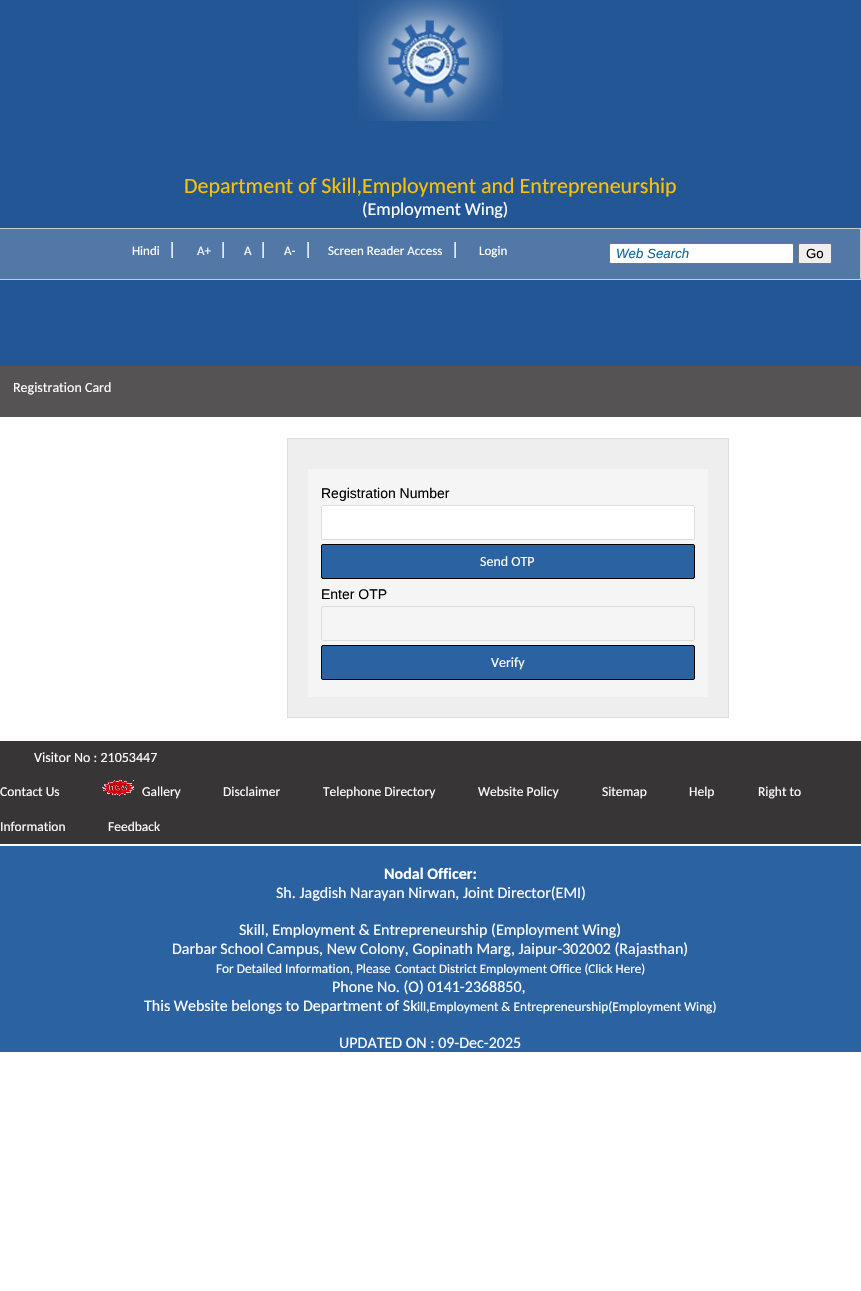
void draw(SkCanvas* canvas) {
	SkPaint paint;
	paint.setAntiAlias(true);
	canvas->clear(0xffffffff);
	paint.setColor(0xff235695);
	canvas->drawRect(SkRect::MakeXYWH(0, 0, 861, 366), paint);
	canvas->drawImageRect(SkImages::DeferredFromEncodedData(SkData::MakeFromFileName("img1.png")), SkRect::MakeXYWH(358, 0, 145, 121), SkSamplingOptions());
	SkFont f1(fontMgr->matchFamilyStyle("Carlito", SkFontStyle::Normal()), 22);
	f1.setSubpixel(true);
	paint.setColor(0xffffc000);
	canvas->drawString("Department of Skill,Employment and Entrepreneurship", 184, 193, f1, paint);
	SkFont f2(fontMgr->matchFamilyStyle("Carlito", SkFontStyle::Normal()), 18);
	f2.setSubpixel(true);
	paint.setColor(0xffffffff);
	canvas->drawString("(Employment Wing)", 362, 215, f2, paint);
	paint.setColor(0xff5178a6);
	canvas->drawRect(SkRect::MakeXYWH(-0.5, 228.5, 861, 51), paint);
	paint.setStroke(true);
	paint.setStrokeWidth(1);
	paint.setColor(0xffcccccc);
	canvas->drawRect(SkRect::MakeXYWH(-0.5, 228.5, 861, 51), paint);
	SkFont f3(fontMgr->matchFamilyStyle("Carlito", SkFontStyle::Normal()), 13);
	f3.setSubpixel(true);
	paint.setStroke(false);
	paint.setColor(0xffffffff);
	canvas->drawString("Hindi", 132, 255, f3, paint);
	canvas->drawString("|", 168, 255, f2, paint);
	canvas->drawString("A+", 197, 255, f3, paint);
	canvas->drawString("|", 219, 255, f2, paint);
	canvas->drawString("A", 244, 255, f3, paint);
	canvas->drawString("|", 259, 255, f2, paint);
	canvas->drawString("A-", 284, 255, f3, paint);
	canvas->drawString("|", 304, 255, f2, paint);
	canvas->drawString("Screen Reader Access", 328, 255, f3, paint);
	canvas->drawString("|", 451, 255, f2, paint);
	canvas->drawString("Login", 479, 255, f3, paint);
	canvas->drawRoundRect(SkRect::MakeXYWH(609.5, 243.5, 184, 20), 1.5, 1.5, paint);
	paint.setStroke(true);
	paint.setColor(0xff767676);
	canvas->drawRoundRect(SkRect::MakeXYWH(609.5, 243.5, 184, 20), 1.5, 1.5, paint);
	SkFont f4(fontMgr->matchFamilyStyle("Liberation Sans", SkFontStyle::Italic()), 13.3);
	f4.setSubpixel(true);
	paint.setStroke(false);
	paint.setColor(0xff10689a);
	canvas->drawString("Web Search", 616, 258, f4, paint);
	paint.setColor(0xffefefef);
	canvas->drawRoundRect(SkRect::MakeXYWH(798.5, 243.5, 33, 20), 1.5, 1.5, paint);
	paint.setStroke(true);
	paint.setColor(0xff767676);
	canvas->drawRoundRect(SkRect::MakeXYWH(798.5, 243.5, 33, 20), 1.5, 1.5, paint);
	SkFont f5(fontMgr->matchFamilyStyle("Liberation Sans", SkFontStyle::Normal()), 13.3);
	f5.setSubpixel(true);
	paint.setStroke(false);
	paint.setColor(0xff000000);
	canvas->drawString("Go", 806, 258, f5, paint);
	paint.setColor(0xff555354);
	canvas->drawRect(SkRect::MakeXYWH(0, 366, 861, 51), paint);
	SkFont f6(fontMgr->matchFamilyStyle("Carlito", SkFontStyle::Normal()), 14);
	f6.setSubpixel(true);
	paint.setColor(0xffffffff);
	canvas->drawString("Registration Card", 13, 392, f6, paint);
	paint.setColor(0xffeeeeee);
	canvas->drawRect(SkRect::MakeXYWH(287.5, 438.5, 441, 279), paint);
	paint.setStroke(true);
	paint.setColor(0xffdddddd);
	canvas->drawRect(SkRect::MakeXYWH(287.5, 438.5, 441, 279), paint);
	paint.setStroke(false);
	paint.setColor(0xfff5f5f5);
	canvas->drawRect(SkRect::MakeXYWH(308, 469, 400, 228), paint);
	SkFont f7(fontMgr->matchFamilyStyle("Liberation Sans", SkFontStyle::Normal()), 14);
	f7.setSubpixel(true);
	paint.setColor(0xff000000);
	canvas->drawString("Registration Number", 321, 498, f7, paint);
	paint.setColor(0xffffffff);
	canvas->drawRoundRect(SkRect::MakeXYWH(321.5, 505.5, 373, 34), 1.5, 1.5, paint);
	paint.setStroke(true);
	paint.setColor(0xffdddddd);
	canvas->drawRoundRect(SkRect::MakeXYWH(321.5, 505.5, 373, 34), 1.5, 1.5, paint);
	paint.setStroke(false);
	paint.setColor(0xff2b62a2);
	canvas->drawRoundRect(SkRect::MakeXYWH(321.5, 544.5, 373, 34), 1.5, 1.5, paint);
	paint.setStroke(true);
	paint.setColor(0xff000000);
	canvas->drawRoundRect(SkRect::MakeXYWH(321.5, 544.5, 373, 34), 1.5, 1.5, paint);
	paint.setStroke(false);
	paint.setColor(0xffffffff);
	canvas->drawString("Send OTP", 480, 566, f6, paint);
	paint.setColor(0xff000000);
	canvas->drawString("Enter OTP", 321, 599, f7, paint);
	paint.setStroke(true);
	paint.setColor(0xffdddddd);
	canvas->drawRoundRect(SkRect::MakeXYWH(321.5, 606.5, 373, 34), 1.5, 1.5, paint);
	paint.setStroke(false);
	paint.setColor(0xff2b62a2);
	canvas->drawRoundRect(SkRect::MakeXYWH(321.5, 645.5, 373, 34), 1.5, 1.5, paint);
	paint.setStroke(true);
	paint.setColor(0xff000000);
	canvas->drawRoundRect(SkRect::MakeXYWH(321.5, 645.5, 373, 34), 1.5, 1.5, paint);
	paint.setStroke(false);
	paint.setColor(0xffffffff);
	canvas->drawString("Verify", 491, 667, f6, paint);
	paint.setColor(0xff373536);
	canvas->drawRect(SkRect::MakeXYWH(0, 741, 861, 103), paint);
	paint.setColor(0xffffffff);
	canvas->drawString("Visitor No : 21053447", 34, 762, f6, paint);
	SkFont f8(fontMgr->matchFamilyStyle("Carlito", SkFontStyle::Normal()), 13.5);
	f8.setSubpixel(true);
	canvas->drawString("Contact Us", 0, 796, f8, paint);
	canvas->drawImageRect(SkImages::DeferredFromEncodedData(SkData::MakeFromFileName("img2.png")), SkRect::MakeXYWH(102, 780, 32, 16), SkSamplingOptions());
	canvas->drawString("Gallery", 142, 796, f8, paint);
	canvas->drawString("Disclaimer", 223, 796, f8, paint);
	canvas->drawString("Telephone Directory", 323, 796, f8, paint);
	canvas->drawString("Website Policy", 478, 796, f8, paint);
	canvas->drawString("Sitemap", 602, 796, f8, paint);
	canvas->drawString("Help", 689, 796, f8, paint);
	canvas->drawString("Right to", 758, 796, f8, paint);
	canvas->drawString("Information", 0, 831, f8, paint);
	canvas->drawString("Feedback", 108, 831, f8, paint);
	paint.setColor(0xff2b62a2);
	canvas->drawRect(SkRect::MakeXYWH(0, 846, 861, 206), paint);
	SkFont f9(fontMgr->matchFamilyStyle("Carlito", SkFontStyle::Bold()), 16);
	f9.setSubpixel(true);
	paint.setColor(0xffffffff);
	canvas->drawString("Nodal Officer:", 384, 879, f9, paint);
	SkFont f10(fontMgr->matchFamilyStyle("Carlito", SkFontStyle::Normal()), 16);
	f10.setSubpixel(true);
	canvas->drawString("Sh. Jagdish Narayan Nirwan, Joint Director(EMI)", 276, 898, f10, paint);
	canvas->drawString("Skill, Employment & Entrepreneurship (Employment Wing)", 239, 935, f10, paint);
	canvas->drawString("Darbar School Campus, New Colony, Gopinath Marg, Jaipur-302002 (Rajasthan)", 172, 954, f10, paint);
	SkFont f11(fontMgr->matchFamilyStyle("Carlito", SkFontStyle::Normal()), 13.3);
	f11.setSubpixel(true);
	canvas->drawString("For Detailed Information, Please", 216, 973, f11, paint);
	canvas->drawString("Contact District Employment Office (Click Here)", 395, 973, f3, paint);
	canvas->drawString("Phone No. (O) 0141-2368850,", 332, 992, f10, paint);
	canvas->drawString("This Website belongs to Department of Sk", 144, 1011, f10, paint);
	canvas->drawString("ill,Employment & Entrepreneurship(Employment Wing)", 417, 1011, f11, paint);
	canvas->drawString("UPDATED ON : 09-Dec-2025", 339, 1048, f10, paint);
}
